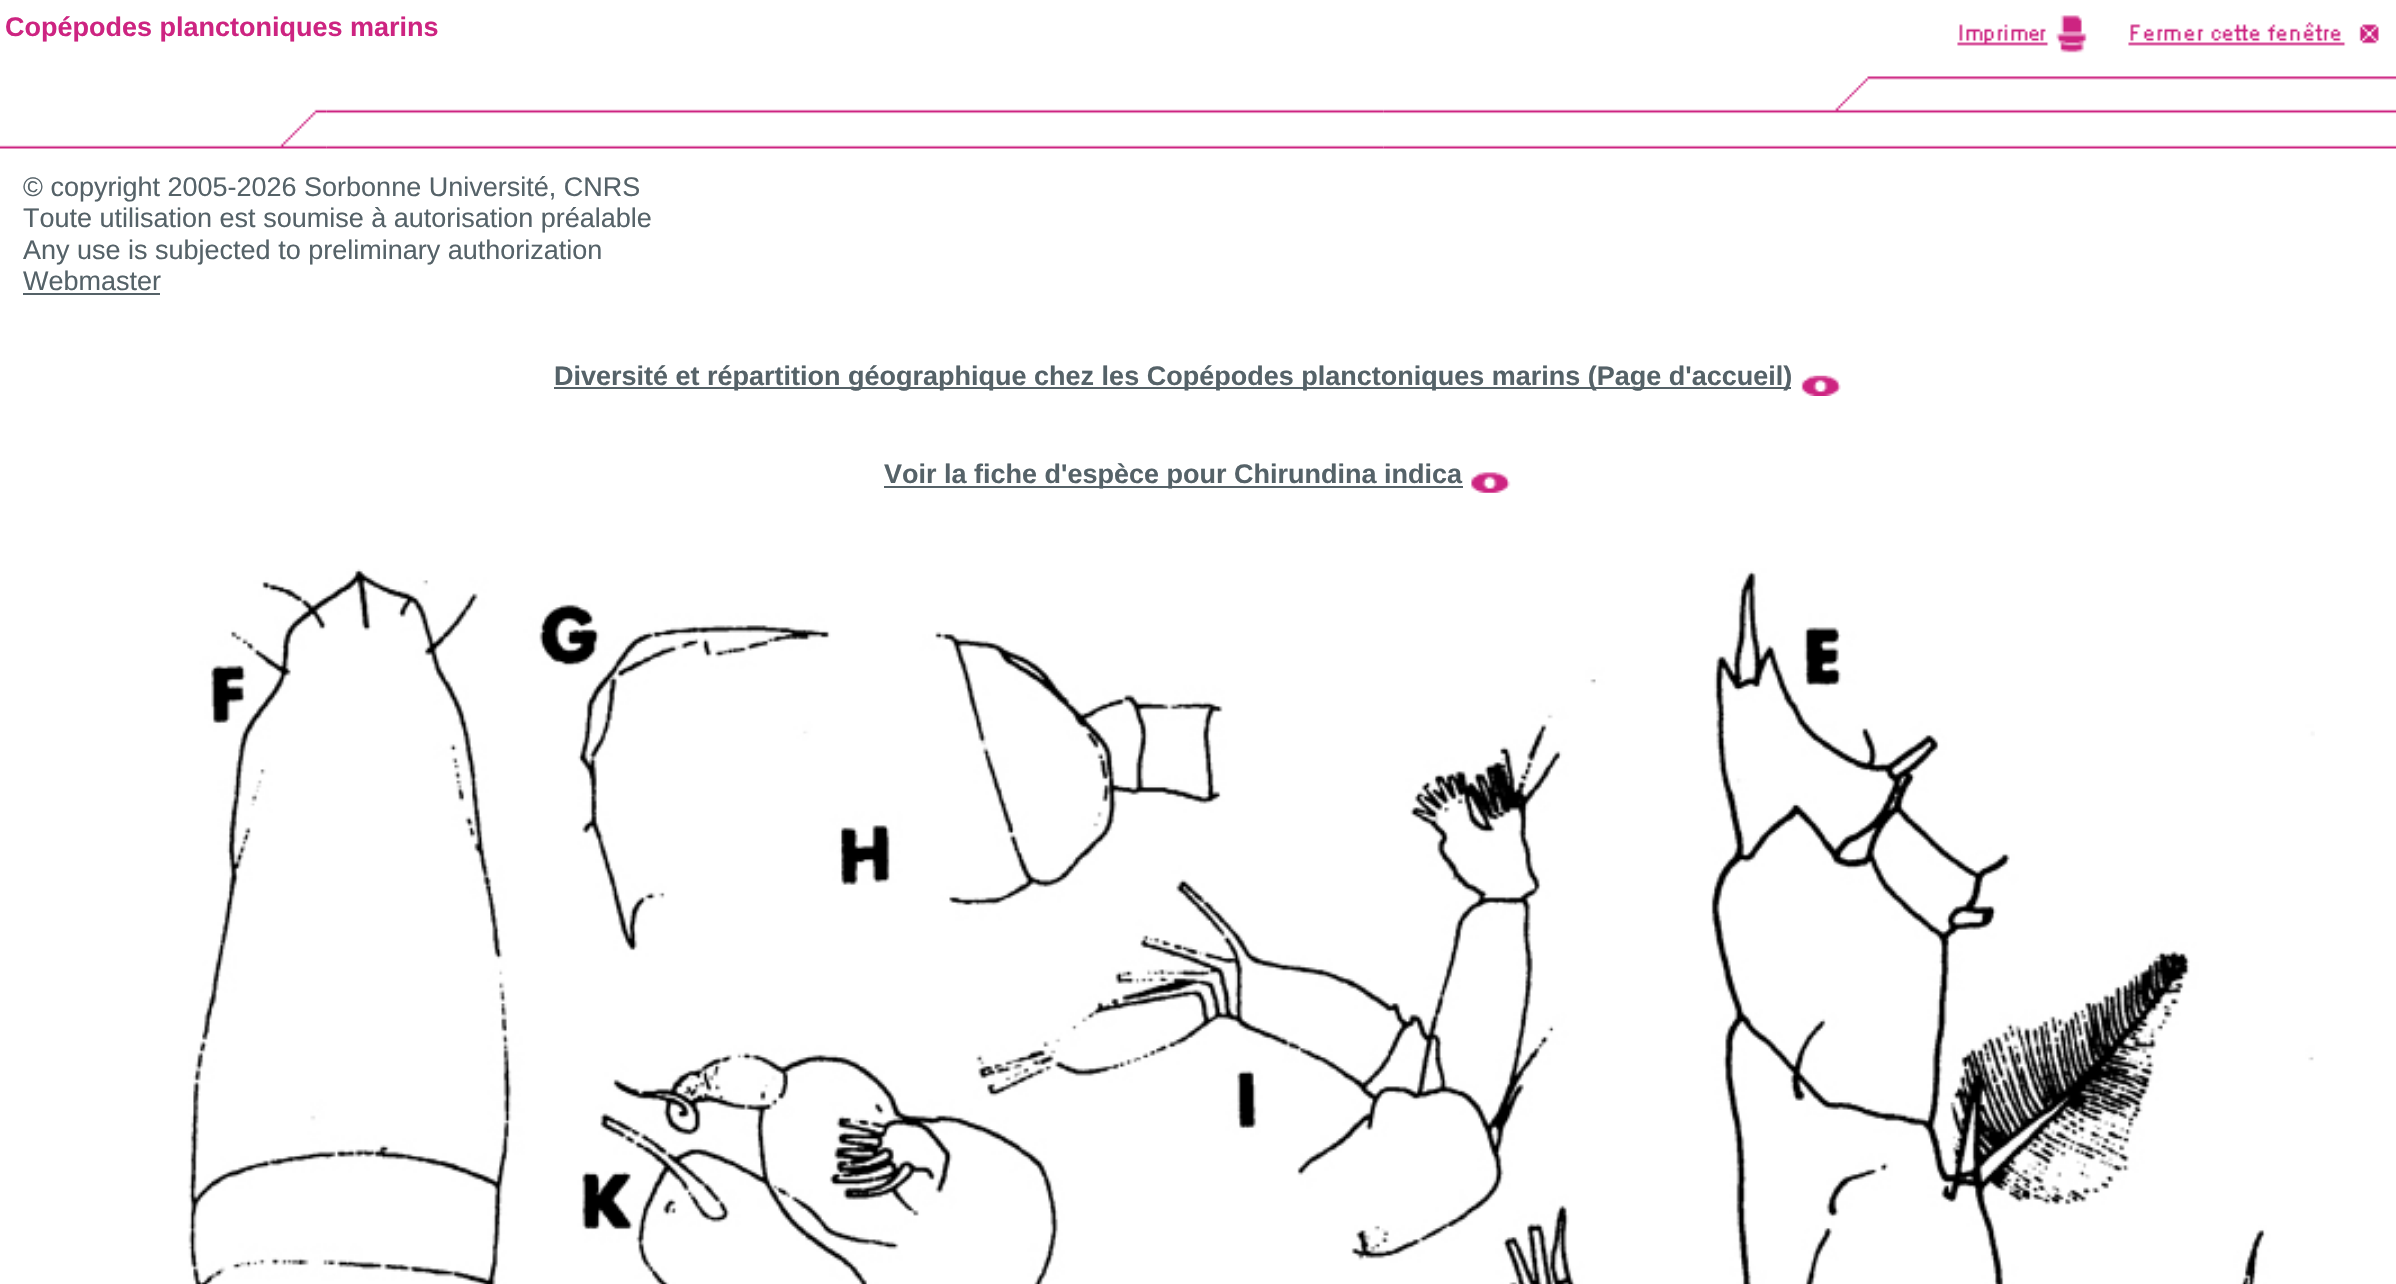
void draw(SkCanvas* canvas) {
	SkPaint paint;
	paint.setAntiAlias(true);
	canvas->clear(0xffffffff);
	canvas->drawImageRect(SkImages::DeferredFromEncodedData(SkData::MakeFromFileName("img1.png")), SkRect::MakeXYWH(0, 109, 327, 40), SkSamplingOptions());
	canvas->drawImageRect(SkImages::DeferredFromEncodedData(SkData::MakeFromFileName("img2.png")), SkRect::MakeXYWH(326, 109, 1058, 40), SkSamplingOptions());
	canvas->drawImageRect(SkImages::DeferredFromEncodedData(SkData::MakeFromFileName("img3.png")), SkRect::MakeXYWH(1383, 15, 1013, 134), SkSamplingOptions());
	SkFont f1(fontMgr->matchFamilyStyle("Liberation Sans", SkFontStyle::Bold()), 27);
	f1.setSubpixel(true);
	paint.setColor(0xffcd2481);
	canvas->drawString("Copépodes planctoniques marins", 5, 36, f1, paint);
	SkFont f2(fontMgr->matchFamilyStyle("Liberation Sans", SkFontStyle::Normal()), 27);
	f2.setSubpixel(true);
	paint.setColor(0xff556268);
	canvas->drawString("© copyright 2005-2026 Sorbonne Université, CNRS", 23, 196, f2, paint);
	canvas->drawString("Toute utilisation est soumise à autorisation préalable", 23, 227, f2, paint);
	canvas->drawString("Any use is subjected to preliminary authorization", 23, 259, f2, paint);
	canvas->drawString("Webmaster", 23, 290, f2, paint);
	canvas->drawRect(SkRect::MakeXYWH(23, 293, 137, 2), paint);
	canvas->drawRect(SkRect::MakeXYWH(554, 387, 1237, 2), paint);
	canvas->drawString("Diversité et répartition géographique chez les Copépodes planctoniques marins (Page d'accueil)", 554, 385, f1, paint);
	canvas->drawImageRect(SkImages::DeferredFromEncodedData(SkData::MakeFromFileName("img4.png")), SkRect::MakeXYWH(1801, 375, 40, 21), SkSamplingOptions());
	canvas->drawRect(SkRect::MakeXYWH(884, 486, 579, 2), paint);
	canvas->drawString("Voir la fiche d'espèce pour Chirundina indica", 884, 483, f1, paint);
	canvas->drawImageRect(SkImages::DeferredFromEncodedData(SkData::MakeFromFileName("img5.png")), SkRect::MakeXYWH(1471, 472, 40, 21), SkSamplingOptions());
	canvas->drawImageRect(SkImages::DeferredFromEncodedData(SkData::MakeFromFileName("img6.png")), SkRect::MakeXYWH(188, 568, 2127, 716), SkSamplingOptions());
}
